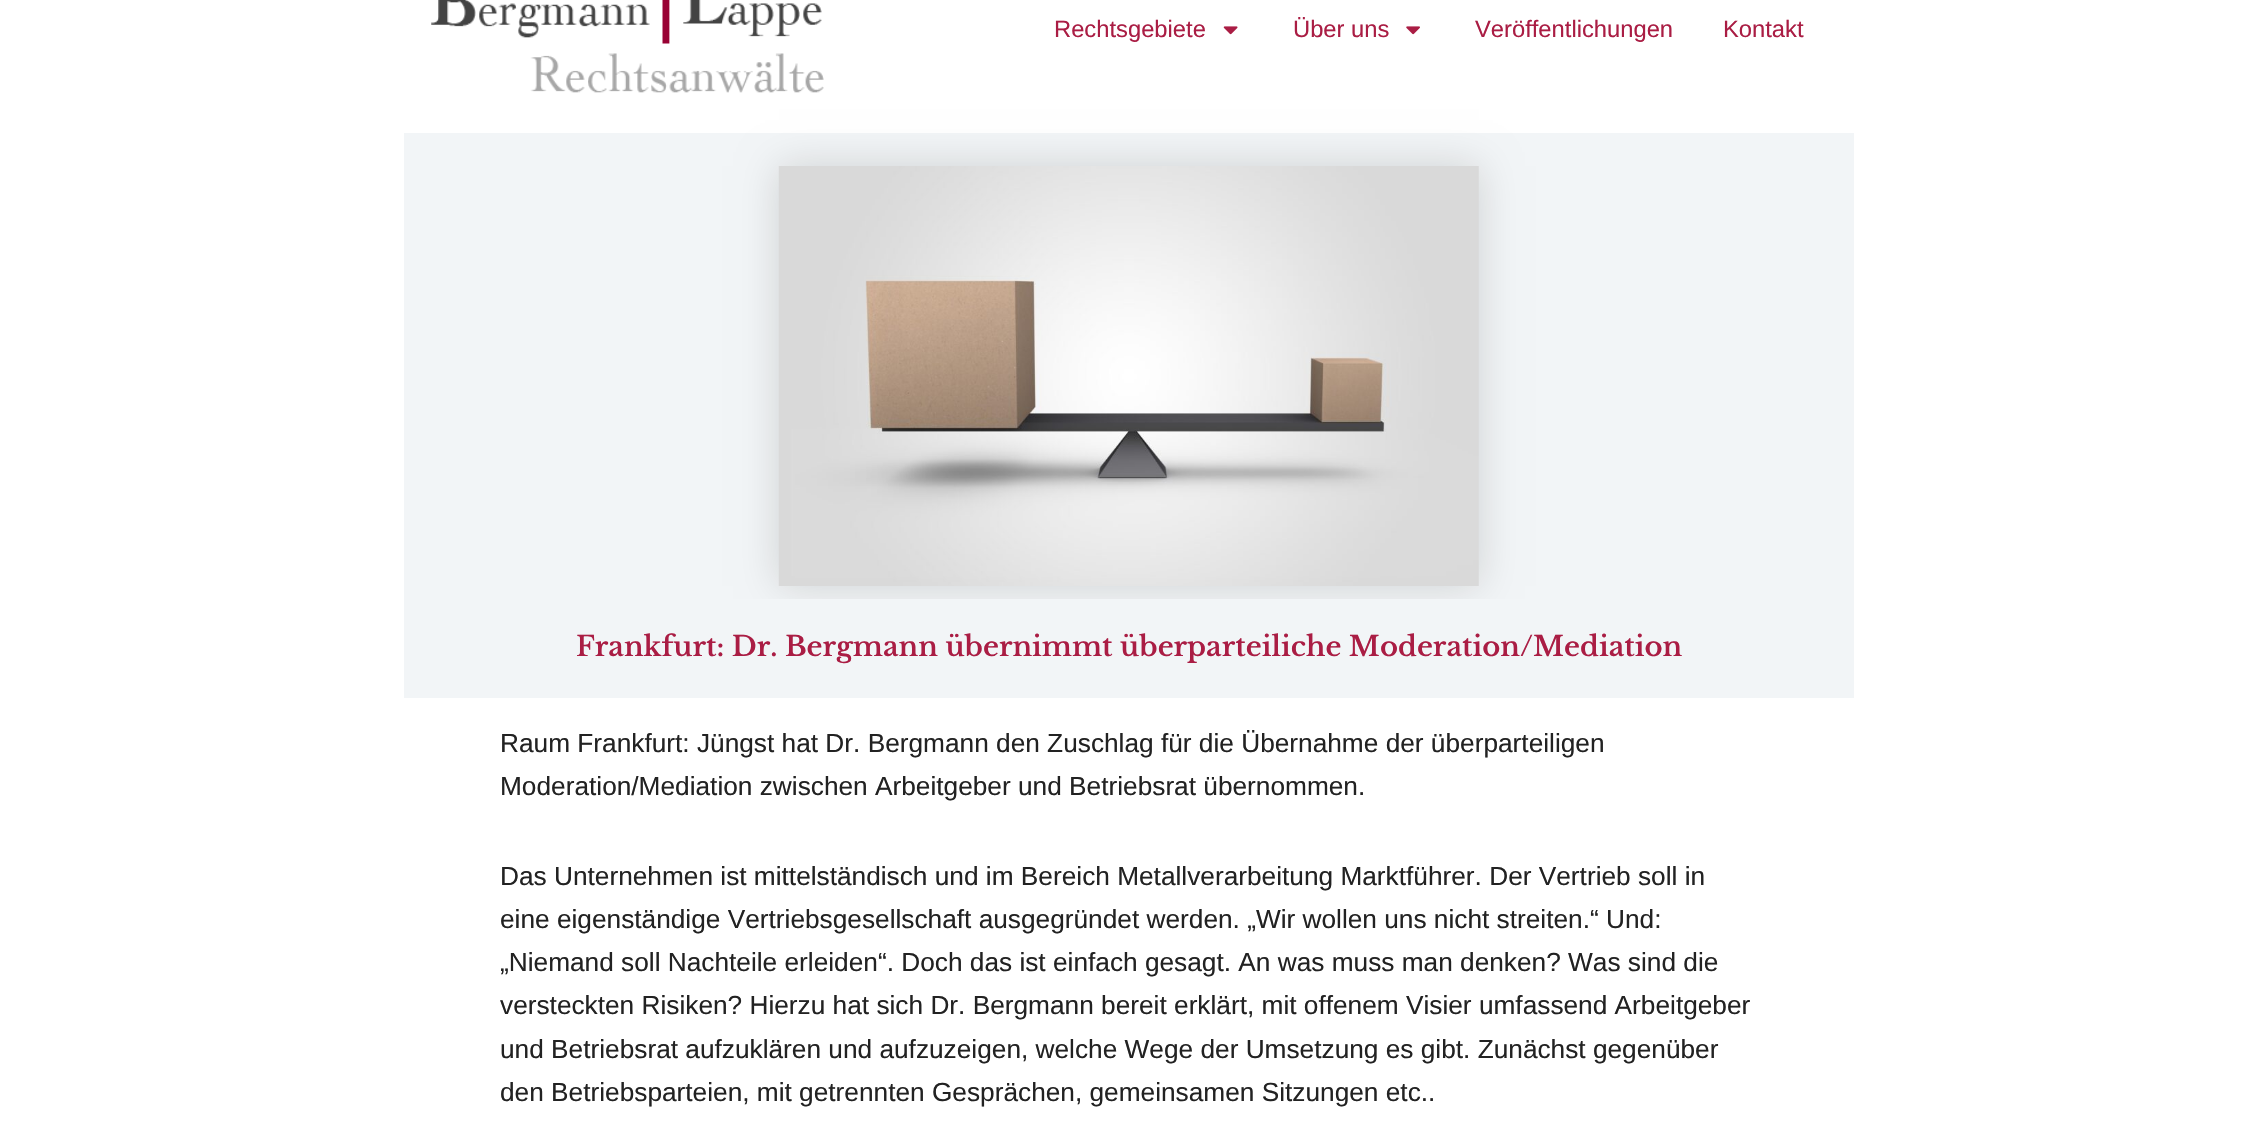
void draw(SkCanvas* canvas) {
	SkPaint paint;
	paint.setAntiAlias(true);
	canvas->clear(0xffffffff);
	canvas->drawImageRect(SkImages::DeferredFromEncodedData(SkData::MakeFromFileName("img1.png")), SkRect::MakeXYWH(431, 0, 393, 93), SkSamplingOptions());
	SkFont f1(fontMgr->matchFamilyStyle("Liberation Sans", SkFontStyle::Normal()), 23.75);
	f1.setSubpixel(true);
	paint.setColor(0xffaa1d44);
	canvas->drawString("Rechtsgebiete", 1054, 37, f1, paint);
	canvas->drawImageRect(SkImages::DeferredFromEncodedData(SkData::MakeFromFileName("img2.png")), SkRect::MakeXYWH(1223, 26, 15, 9), SkSamplingOptions());
	canvas->drawString("Über uns", 1293, 37, f1, paint);
	canvas->drawImageRect(SkImages::DeferredFromEncodedData(SkData::MakeFromFileName("img3.png")), SkRect::MakeXYWH(1406, 26, 14, 9), SkSamplingOptions());
	canvas->drawString("Veröffentlichungen", 1475, 37, f1, paint);
	canvas->drawString("Kontakt", 1723, 37, f1, paint);
	paint.setColor(0xfff2f5f7);
	canvas->drawRect(SkRect::MakeXYWH(404, 133, 1450, 466), paint);
	paint.setColor(0x26000000);
	paint.setMaskFilter(SkMaskFilter::MakeBlur(kNormal_SkBlurStyle, 19));
	canvas->drawRect(SkRect::MakeXYWH(779, 166, 700, 420), paint);
	paint.setMaskFilter(nullptr);
	canvas->drawImageRect(SkImages::DeferredFromEncodedData(SkData::MakeFromFileName("img4.png")), SkRect::MakeXYWH(778, 166, 701, 420), SkSamplingOptions());
	paint.setColor(0xfff2f5f7);
	canvas->drawRect(SkRect::MakeXYWH(404, 599, 1450, 99), paint);
	SkFont f2(fontMgr->matchFamilyStyle("Libre Baskerville", SkFontStyle(600, SkFontStyle::kNormal_Width, SkFontStyle::kUpright_Slant)), 27.5);
	f2.setSubpixel(true);
	paint.setColor(0xffaa1d44);
	canvas->drawString("Frankfurt: Dr. Bergmann übernimmt überparteiliche Moderation/Mediation", 576, 656, f2, paint);
	SkFont f3(fontMgr->matchFamilyStyle("Liberation Sans", SkFontStyle::Normal()), 26.25);
	f3.setSubpixel(true);
	paint.setColor(0xff222222);
	canvas->drawString("Raum Frankfurt: Jüngst hat Dr. Bergmann den Zuschlag für die Übernahme der überparteiligen", 500, 752, f3, paint);
	canvas->drawString("Moderation/Mediation zwischen Arbeitgeber und Betriebsrat übernommen.", 500, 795, f3, paint);
	canvas->drawString("Das Unternehmen ist mittelständisch und im Bereich Metallverarbeitung Marktführer. Der Vertrieb soll in", 500, 885, f3, paint);
	canvas->drawString("eine eigenständige Vertriebsgesellschaft ausgegründet werden. „Wir wollen uns nicht streiten.“ Und:", 500, 928, f3, paint);
	canvas->drawString("„Niemand soll Nachteile erleiden“. Doch das ist einfach gesagt. An was muss man denken? Was sind die", 500, 971, f3, paint);
	canvas->drawString("versteckten Risiken? Hierzu hat sich Dr. Bergmann bereit erklärt, mit offenem Visier umfassend Arbeitgeber", 500, 1014, f3, paint);
	canvas->drawString("und Betriebsrat aufzuklären und aufzuzeigen, welche Wege der Umsetzung es gibt. Zunächst gegenüber", 500, 1058, f3, paint);
	canvas->drawString("den Betriebsparteien, mit getrennten Gesprächen, gemeinsamen Sitzungen etc..", 500, 1101, f3, paint);
}
